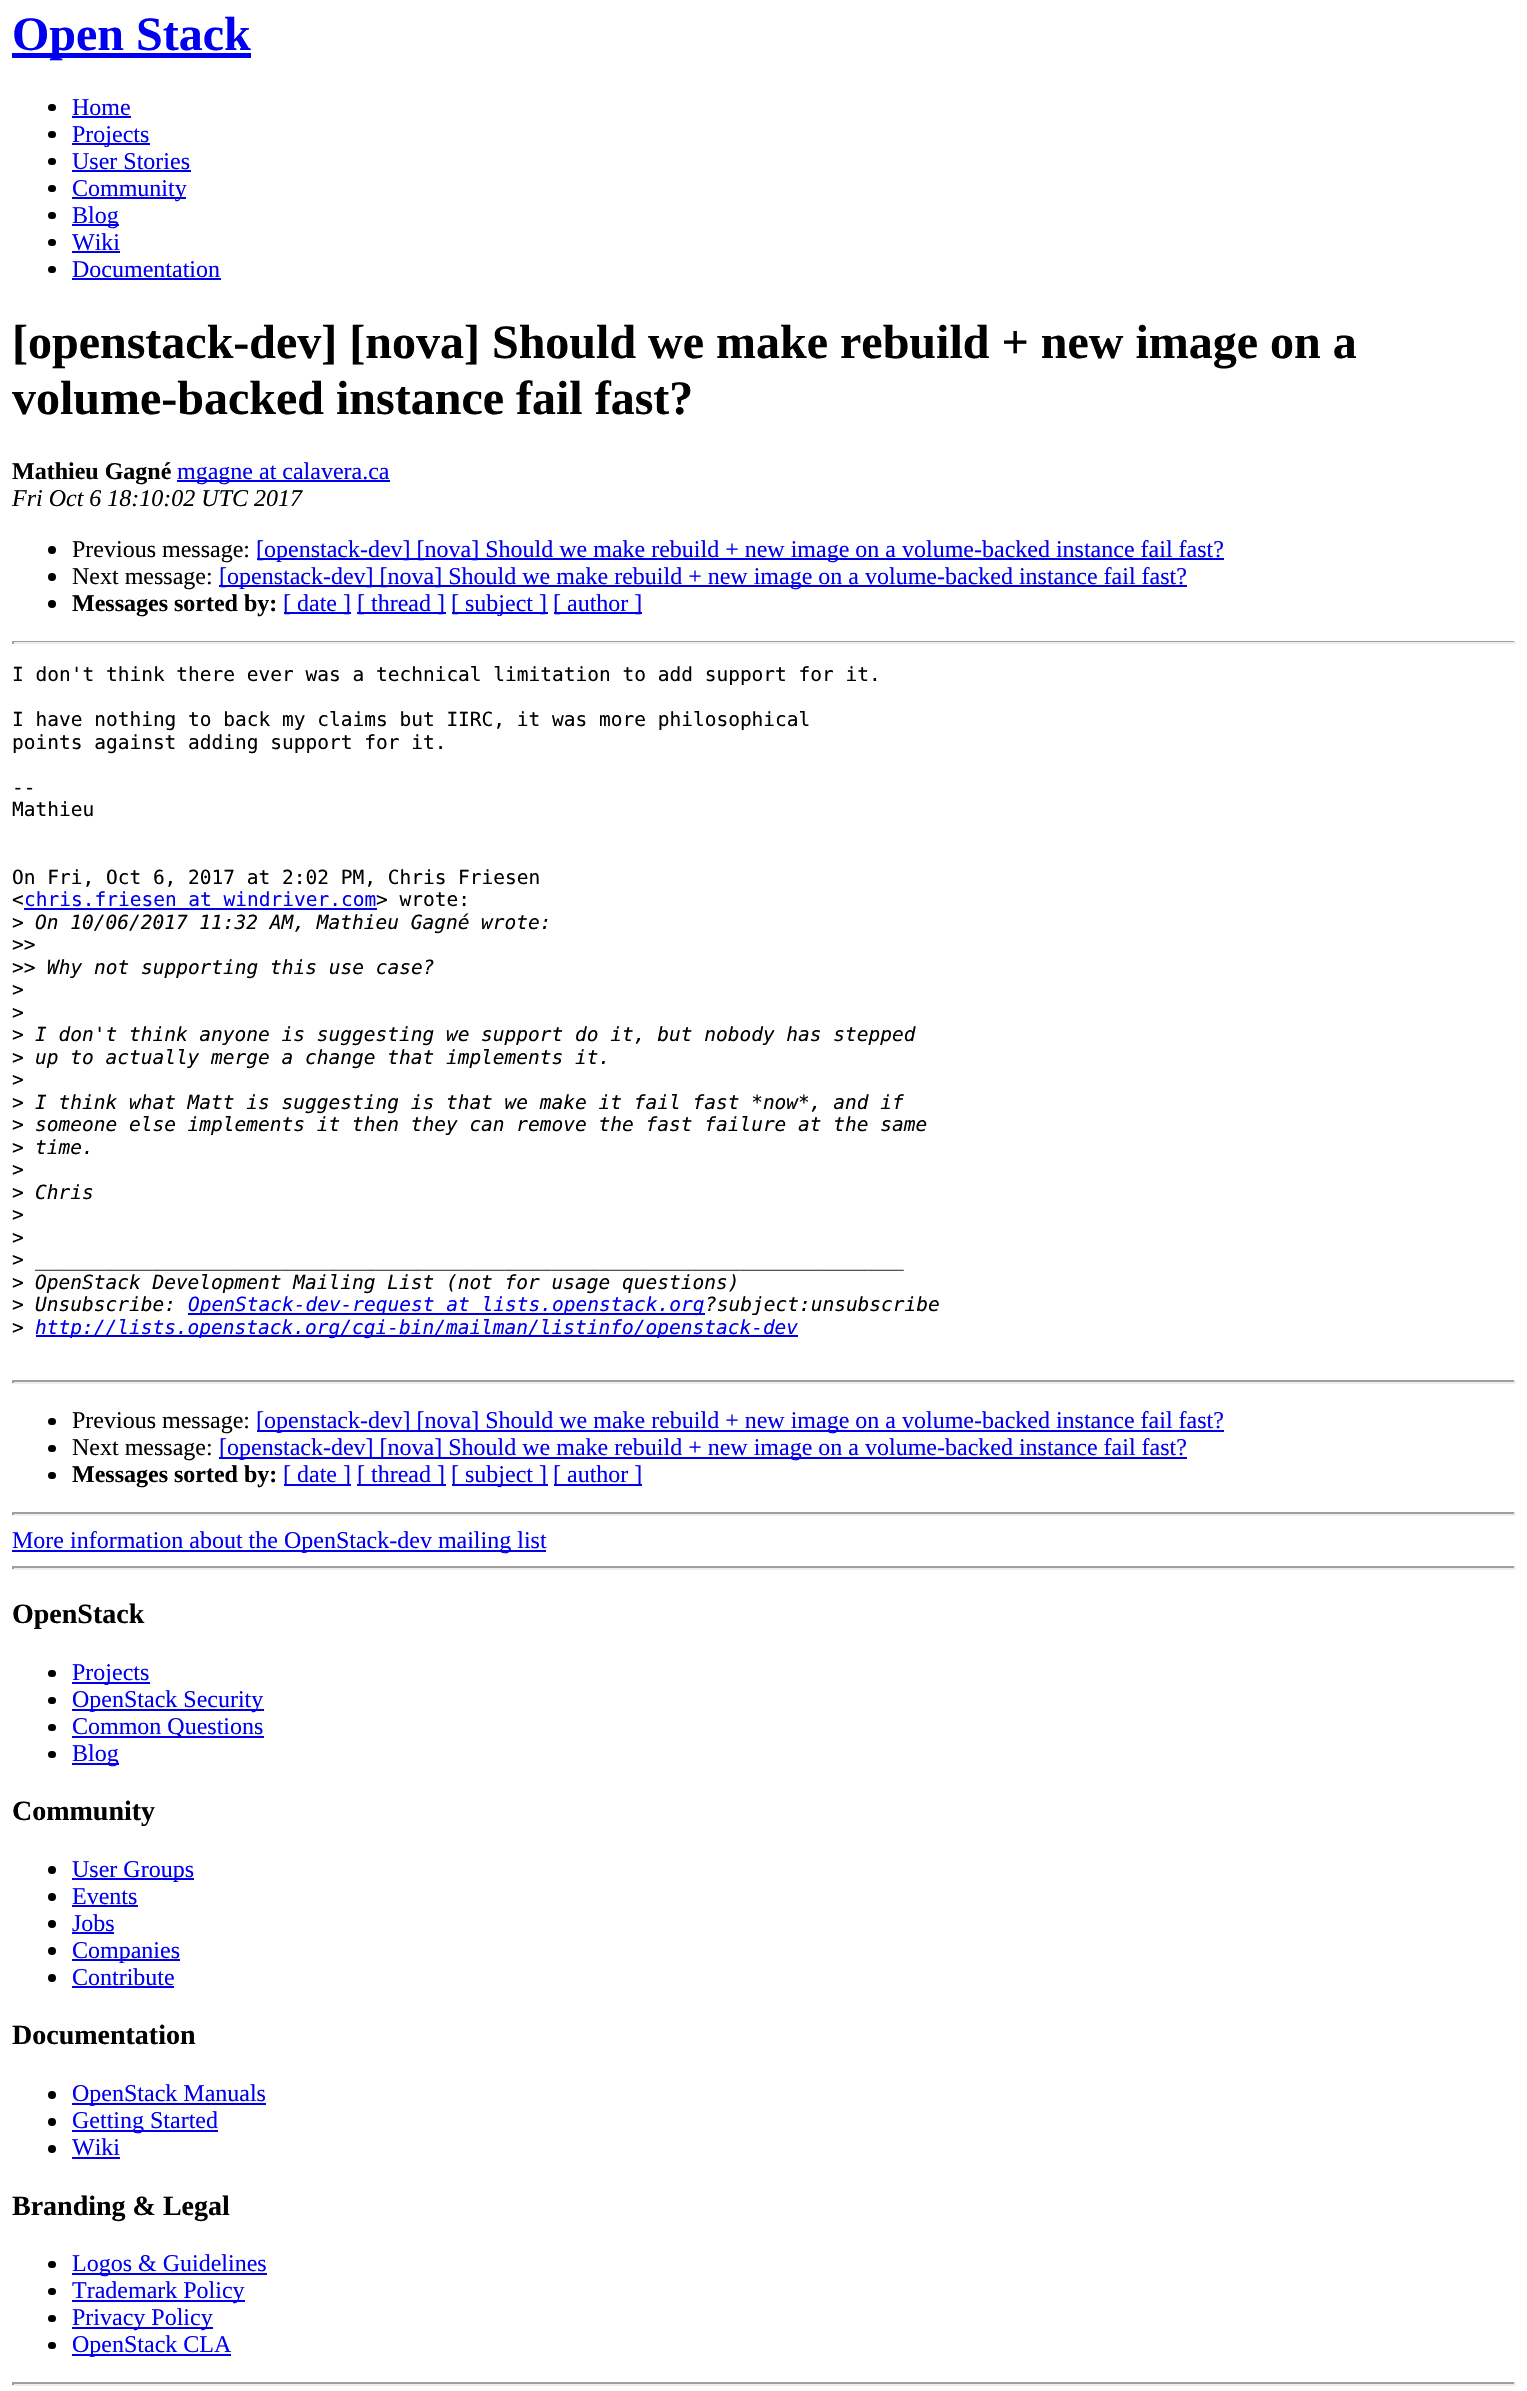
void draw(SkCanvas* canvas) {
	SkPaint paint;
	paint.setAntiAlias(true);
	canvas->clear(0xffffffff);
	paint.setColor(0xff0000ee);
	canvas->drawRect(SkRect::MakeXYWH(12, 53, 239, 5), paint);
	SkFont f1(fontMgr->matchFamilyStyle("Liberation Serif", SkFontStyle::Bold()), 48);
	f1.setSubpixel(true);
	canvas->drawString("Open Stack", 12, 50, f1, paint);
	paint.setColor(0xff000000);
	canvas->drawRoundRect(SkRect::MakeXYWH(48, 104, 8, 7), 3.5, 3.5, paint);
	SkFont f2(fontMgr->matchFamilyStyle("Liberation Serif", SkFontStyle::Normal()), 24);
	f2.setSubpixel(true);
	paint.setColor(0xff0000ee);
	canvas->drawString("Home", 72, 115, f2, paint);
	canvas->drawRect(SkRect::MakeXYWH(72, 116, 59, 2), paint);
	paint.setColor(0xff000000);
	canvas->drawRoundRect(SkRect::MakeXYWH(48, 131, 8, 7), 3.5, 3.5, paint);
	paint.setColor(0xff0000ee);
	canvas->drawRect(SkRect::MakeXYWH(72, 143, 78, 2), paint);
	canvas->drawString("Projects", 72, 142, f2, paint);
	paint.setColor(0xff000000);
	canvas->drawRoundRect(SkRect::MakeXYWH(48, 158, 8, 7), 3.5, 3.5, paint);
	paint.setColor(0xff0000ee);
	canvas->drawString("User Stories", 72, 169, f2, paint);
	canvas->drawRect(SkRect::MakeXYWH(72, 170, 119, 2), paint);
	paint.setColor(0xff000000);
	canvas->drawRoundRect(SkRect::MakeXYWH(48, 185, 8, 7), 3.5, 3.5, paint);
	paint.setColor(0xff0000ee);
	canvas->drawRect(SkRect::MakeXYWH(72, 197, 114, 2), paint);
	canvas->drawString("Community", 72, 196, f2, paint);
	paint.setColor(0xff000000);
	canvas->drawRoundRect(SkRect::MakeXYWH(48, 212, 8, 7), 3.5, 3.5, paint);
	paint.setColor(0xff0000ee);
	canvas->drawRect(SkRect::MakeXYWH(72, 224, 47, 2), paint);
	canvas->drawString("Blog", 72, 223, f2, paint);
	paint.setColor(0xff000000);
	canvas->drawRoundRect(SkRect::MakeXYWH(48, 239, 8, 7), 3.5, 3.5, paint);
	paint.setColor(0xff0000ee);
	canvas->drawString("Wiki", 72, 250, f2, paint);
	canvas->drawRect(SkRect::MakeXYWH(72, 251, 48, 2), paint);
	paint.setColor(0xff000000);
	canvas->drawRoundRect(SkRect::MakeXYWH(48, 266, 8, 7), 3.5, 3.5, paint);
	paint.setColor(0xff0000ee);
	canvas->drawString("Documentation", 72, 277, f2, paint);
	canvas->drawRect(SkRect::MakeXYWH(72, 278, 149, 2), paint);
	paint.setColor(0xff000000);
	canvas->drawString("[openstack-dev] [nova] Should we make rebuild + new image on a", 12, 358, f1, paint);
	canvas->drawString("volume-backed instance fail fast?", 12, 414, f1, paint);
	SkFont f3(fontMgr->matchFamilyStyle("Liberation Serif", SkFontStyle::Bold()), 24);
	f3.setSubpixel(true);
	canvas->drawString("Mathieu Gagné", 12, 479, f3, paint);
	paint.setColor(0xff0000ee);
	canvas->drawRect(SkRect::MakeXYWH(177, 480, 213, 2), paint);
	canvas->drawString("mgagne at calavera.ca", 177, 479, f2, paint);
	SkFont f4(fontMgr->matchFamilyStyle("Liberation Serif", SkFontStyle::Italic()), 24);
	f4.setSubpixel(true);
	paint.setColor(0xff000000);
	canvas->drawString("Fri Oct 6 18:10:02 UTC 2017", 12, 506, f4, paint);
	canvas->drawCircle(52, 550, 4, paint);
	canvas->drawString("Previous message:", 72, 557, f2, paint);
	paint.setColor(0xff0000ee);
	canvas->drawRect(SkRect::MakeXYWH(257, 558, 967, 2), paint);
	canvas->drawString("[openstack-dev] [nova] Should we make rebuild + new image on a volume-backed instance fail fast?", 256, 557, f2, paint);
	paint.setColor(0xff000000);
	canvas->drawCircle(52, 577, 4, paint);
	canvas->drawString("Next message:", 72, 584, f2, paint);
	paint.setColor(0xff0000ee);
	canvas->drawRect(SkRect::MakeXYWH(219, 585, 968, 2), paint);
	canvas->drawString("[openstack-dev] [nova] Should we make rebuild + new image on a volume-backed instance fail fast?", 219, 584, f2, paint);
	paint.setColor(0xff000000);
	canvas->drawCircle(52, 604, 4, paint);
	canvas->drawString("Messages sorted by:", 72, 611, f3, paint);
	paint.setColor(0xff0000ee);
	canvas->drawRect(SkRect::MakeXYWH(284, 612, 67, 2), paint);
	canvas->drawString("[ date ]", 283, 611, f2, paint);
	canvas->drawRect(SkRect::MakeXYWH(357, 612, 89, 2), paint);
	canvas->drawString("[ thread ]", 357, 611, f2, paint);
	canvas->drawRect(SkRect::MakeXYWH(452, 612, 96, 2), paint);
	canvas->drawString("[ subject ]", 451, 611, f2, paint);
	canvas->drawRect(SkRect::MakeXYWH(554, 612, 88, 2), paint);
	canvas->drawString("[ author ]", 553, 611, f2, paint);
	paint.setColor(0xff9f9f9f);
	canvas->drawRect(SkRect::MakeXYWH(12, 641, 1503, 1), paint);
	paint.setColor(0xffeeeeee);
	canvas->drawRect(SkRect::MakeXYWH(1514, 641, 2, 3), paint);
	canvas->drawRect(SkRect::MakeXYWH(12, 642, 1503, 2), paint);
	paint.setColor(0xff9f9f9f);
	canvas->drawRect(SkRect::MakeXYWH(12, 641, 2, 3), paint);
	SkFont f5(fontMgr->matchFamilyStyle("DejaVu Sans Mono", SkFontStyle::Normal()), 19.5);
	f5.setSubpixel(true);
	paint.setColor(0xff000000);
	canvas->drawString("I don't think there ever was a technical limitation to add support for it.", 12, 681, f5, paint);
	canvas->drawString("I have nothing to back my claims but IIRC, it was more philosophical", 12, 726, f5, paint);
	canvas->drawString("points against adding support for it.", 12, 749, f5, paint);
	canvas->drawString("--", 12, 794, f5, paint);
	canvas->drawString("Mathieu", 12, 816, f5, paint);
	canvas->drawString("On Fri, Oct 6, 2017 at 2:02 PM, Chris Friesen", 12, 884, f5, paint);
	canvas->drawString("<", 12, 906, f5, paint);
	paint.setColor(0xff0000ee);
	canvas->drawString("chris.friesen at windriver.com", 24, 906, f5, paint);
	canvas->drawRect(SkRect::MakeXYWH(24, 908, 353, 2), paint);
	paint.setColor(0xff000000);
	canvas->drawString("> wrote:", 376, 906, f5, paint);
	canvas->drawString(">", 12, 929, f5, paint);
	SkFont f6(fontMgr->matchFamilyStyle("DejaVu Sans Mono", SkFontStyle::Italic()), 19.5);
	f6.setSubpixel(true);
	canvas->drawString("On 10/06/2017 11:32 AM, Mathieu Gagné wrote:", 35, 929, f6, paint);
	canvas->drawString(">>", 12, 951, f5, paint);
	canvas->drawString(">>", 12, 974, f5, paint);
	canvas->drawString("Why not supporting this use case?", 47, 974, f6, paint);
	canvas->drawString(">", 12, 996, f5, paint);
	canvas->drawString(">", 12, 1019, f5, paint);
	canvas->drawString(">", 12, 1041, f5, paint);
	canvas->drawString("I don't think anyone is suggesting we support do it, but nobody has stepped", 35, 1041, f6, paint);
	canvas->drawString(">", 12, 1064, f5, paint);
	canvas->drawString("up to actually merge a change that implements it.", 35, 1064, f6, paint);
	canvas->drawString(">", 12, 1086, f5, paint);
	canvas->drawString(">", 12, 1109, f5, paint);
	canvas->drawString("I think what Matt is suggesting is that we make it fail fast *now*, and if", 35, 1109, f6, paint);
	canvas->drawString(">", 12, 1131, f5, paint);
	canvas->drawString("someone else implements it then they can remove the fast failure at the same", 35, 1131, f6, paint);
	canvas->drawString(">", 12, 1154, f5, paint);
	canvas->drawString("time.", 35, 1154, f6, paint);
	canvas->drawString(">", 12, 1176, f5, paint);
	canvas->drawString(">", 12, 1199, f5, paint);
	canvas->drawString("Chris", 35, 1199, f6, paint);
	canvas->drawString(">", 12, 1221, f5, paint);
	canvas->drawString(">", 12, 1244, f5, paint);
	canvas->drawString(">", 12, 1266, f5, paint);
	canvas->drawString("__________________________________________________________________________", 35, 1266, f6, paint);
	canvas->drawString(">", 12, 1289, f5, paint);
	canvas->drawString("OpenStack Development Mailing List (not for usage questions)", 35, 1289, f6, paint);
	canvas->drawString(">", 12, 1311, f5, paint);
	canvas->drawString("Unsubscribe:", 35, 1311, f6, paint);
	paint.setColor(0xff0000ee);
	canvas->drawRect(SkRect::MakeXYWH(188, 1313, 517, 2), paint);
	canvas->drawString("OpenStack-dev-request at lists.openstack.org", 188, 1311, f6, paint);
	paint.setColor(0xff000000);
	canvas->drawString("?subject:unsubscribe", 705, 1311, f6, paint);
	canvas->drawString(">", 12, 1334, f5, paint);
	paint.setColor(0xff0000ee);
	canvas->drawRect(SkRect::MakeXYWH(36, 1335, 762, 2), paint);
	canvas->drawString("http://lists.openstack.org/cgi-bin/mailman/listinfo/openstack-dev", 35, 1334, f6, paint);
	paint.setColor(0xff9f9f9f);
	canvas->drawRect(SkRect::MakeXYWH(12, 1380, 1503, 2), paint);
	paint.setColor(0xffeeeeee);
	canvas->drawRect(SkRect::MakeXYWH(1514, 1380, 2, 3), paint);
	canvas->drawRect(SkRect::MakeXYWH(12, 1382, 1503, 2), paint);
	paint.setColor(0xff9f9f9f);
	canvas->drawRect(SkRect::MakeXYWH(12, 1380, 2, 3), paint);
	paint.setColor(0xff000000);
	canvas->drawRoundRect(SkRect::MakeXYWH(48, 1418, 8, 7), 3.5, 3.5, paint);
	canvas->drawString("Previous message:", 72, 1428, f2, paint);
	paint.setColor(0xff0000ee);
	canvas->drawRect(SkRect::MakeXYWH(257, 1430, 967, 2), paint);
	canvas->drawString("[openstack-dev] [nova] Should we make rebuild + new image on a volume-backed instance fail fast?", 256, 1428, f2, paint);
	paint.setColor(0xff000000);
	canvas->drawRoundRect(SkRect::MakeXYWH(48, 1445, 8, 7), 3.5, 3.5, paint);
	canvas->drawString("Next message:", 72, 1455, f2, paint);
	paint.setColor(0xff0000ee);
	canvas->drawRect(SkRect::MakeXYWH(219, 1457, 968, 2), paint);
	canvas->drawString("[openstack-dev] [nova] Should we make rebuild + new image on a volume-backed instance fail fast?", 219, 1455, f2, paint);
	paint.setColor(0xff000000);
	canvas->drawRoundRect(SkRect::MakeXYWH(48, 1472, 8, 7), 3.5, 3.5, paint);
	canvas->drawString("Messages sorted by:", 72, 1482, f3, paint);
	paint.setColor(0xff0000ee);
	canvas->drawRect(SkRect::MakeXYWH(284, 1484, 67, 2), paint);
	canvas->drawString("[ date ]", 283, 1482, f2, paint);
	canvas->drawRect(SkRect::MakeXYWH(357, 1484, 89, 2), paint);
	canvas->drawString("[ thread ]", 357, 1482, f2, paint);
	canvas->drawRect(SkRect::MakeXYWH(452, 1484, 96, 2), paint);
	canvas->drawString("[ subject ]", 451, 1482, f2, paint);
	canvas->drawRect(SkRect::MakeXYWH(554, 1484, 88, 2), paint);
	canvas->drawString("[ author ]", 553, 1482, f2, paint);
	paint.setColor(0xff9f9f9f);
	canvas->drawRect(SkRect::MakeXYWH(12, 1512, 1503, 2), paint);
	paint.setColor(0xffeeeeee);
	canvas->drawRect(SkRect::MakeXYWH(1514, 1512, 2, 3), paint);
	canvas->drawRect(SkRect::MakeXYWH(12, 1514, 1503, 2), paint);
	paint.setColor(0xff9f9f9f);
	canvas->drawRect(SkRect::MakeXYWH(12, 1512, 2, 3), paint);
	paint.setColor(0xff0000ee);
	canvas->drawRect(SkRect::MakeXYWH(12, 1550, 534, 2), paint);
	canvas->drawString("More information about the OpenStack-dev mailing list", 12, 1548, f2, paint);
	paint.setColor(0xff9f9f9f);
	canvas->drawRect(SkRect::MakeXYWH(12, 1566, 1503, 2), paint);
	paint.setColor(0xffeeeeee);
	canvas->drawRect(SkRect::MakeXYWH(1514, 1566, 2, 3), paint);
	canvas->drawRect(SkRect::MakeXYWH(12, 1568, 1503, 2), paint);
	paint.setColor(0xff9f9f9f);
	canvas->drawRect(SkRect::MakeXYWH(12, 1566, 2, 3), paint);
	SkFont f7(fontMgr->matchFamilyStyle("Liberation Serif", SkFontStyle::Bold()), 28);
	f7.setSubpixel(true);
	paint.setColor(0xff000000);
	canvas->drawString("OpenStack", 12, 1623, f7, paint);
	canvas->drawRoundRect(SkRect::MakeXYWH(48, 1670, 8, 7), 3.5, 3.5, paint);
	paint.setColor(0xff0000ee);
	canvas->drawRect(SkRect::MakeXYWH(72, 1682, 78, 2), paint);
	canvas->drawString("Projects", 72, 1680, f2, paint);
	paint.setColor(0xff000000);
	canvas->drawRoundRect(SkRect::MakeXYWH(48, 1697, 8, 7), 3.5, 3.5, paint);
	paint.setColor(0xff0000ee);
	canvas->drawRect(SkRect::MakeXYWH(72, 1709, 192, 2), paint);
	canvas->drawString("OpenStack Security", 72, 1707, f2, paint);
	paint.setColor(0xff000000);
	canvas->drawRoundRect(SkRect::MakeXYWH(48, 1724, 8, 7), 3.5, 3.5, paint);
	paint.setColor(0xff0000ee);
	canvas->drawRect(SkRect::MakeXYWH(72, 1736, 192, 2), paint);
	canvas->drawString("Common Questions", 72, 1734, f2, paint);
	paint.setColor(0xff000000);
	canvas->drawRoundRect(SkRect::MakeXYWH(48, 1751, 8, 7), 3.5, 3.5, paint);
	paint.setColor(0xff0000ee);
	canvas->drawRect(SkRect::MakeXYWH(72, 1763, 47, 2), paint);
	canvas->drawString("Blog", 72, 1761, f2, paint);
	paint.setColor(0xff000000);
	canvas->drawString("Community", 12, 1820, f7, paint);
	canvas->drawCircle(52, 1870, 4, paint);
	paint.setColor(0xff0000ee);
	canvas->drawRect(SkRect::MakeXYWH(72, 1878, 122, 2), paint);
	canvas->drawString("User Groups", 72, 1877, f2, paint);
	paint.setColor(0xff000000);
	canvas->drawCircle(52, 1897, 4, paint);
	paint.setColor(0xff0000ee);
	canvas->drawString("Events", 72, 1904, f2, paint);
	canvas->drawRect(SkRect::MakeXYWH(72, 1905, 66, 2), paint);
	paint.setColor(0xff000000);
	canvas->drawCircle(52, 1924, 4, paint);
	paint.setColor(0xff0000ee);
	canvas->drawString("Jobs", 72, 1931, f2, paint);
	canvas->drawRect(SkRect::MakeXYWH(72, 1932, 42, 2), paint);
	paint.setColor(0xff000000);
	canvas->drawCircle(52, 1951, 4, paint);
	paint.setColor(0xff0000ee);
	canvas->drawRect(SkRect::MakeXYWH(72, 1959, 108, 2), paint);
	canvas->drawString("Companies", 72, 1958, f2, paint);
	paint.setColor(0xff000000);
	canvas->drawCircle(52, 1978, 4, paint);
	paint.setColor(0xff0000ee);
	canvas->drawString("Contribute", 72, 1985, f2, paint);
	canvas->drawRect(SkRect::MakeXYWH(72, 1986, 102, 2), paint);
	paint.setColor(0xff000000);
	canvas->drawString("Documentation", 12, 2044, f7, paint);
	canvas->drawCircle(52, 2095, 4, paint);
	paint.setColor(0xff0000ee);
	canvas->drawRect(SkRect::MakeXYWH(72, 2103, 194, 2), paint);
	canvas->drawString("OpenStack Manuals", 72, 2101, f2, paint);
	paint.setColor(0xff000000);
	canvas->drawCircle(52, 2122, 4, paint);
	paint.setColor(0xff0000ee);
	canvas->drawRect(SkRect::MakeXYWH(72, 2130, 146, 2), paint);
	canvas->drawString("Getting Started", 72, 2128, f2, paint);
	paint.setColor(0xff000000);
	canvas->drawCircle(52, 2149, 4, paint);
	paint.setColor(0xff0000ee);
	canvas->drawString("Wiki", 72, 2155, f2, paint);
	canvas->drawRect(SkRect::MakeXYWH(72, 2157, 48, 2), paint);
	paint.setColor(0xff000000);
	canvas->drawString("Branding & Legal", 12, 2215, f7, paint);
	canvas->drawRoundRect(SkRect::MakeXYWH(48, 2261, 8, 7), 3.5, 3.5, paint);
	paint.setColor(0xff0000ee);
	canvas->drawRect(SkRect::MakeXYWH(72, 2273, 195, 2), paint);
	canvas->drawString("Logos & Guidelines", 72, 2271, f2, paint);
	paint.setColor(0xff000000);
	canvas->drawRoundRect(SkRect::MakeXYWH(48, 2288, 8, 7), 3.5, 3.5, paint);
	paint.setColor(0xff0000ee);
	canvas->drawRect(SkRect::MakeXYWH(72, 2300, 173, 2), paint);
	canvas->drawString("Trademark Policy", 72, 2298, f2, paint);
	paint.setColor(0xff000000);
	canvas->drawRoundRect(SkRect::MakeXYWH(48, 2315, 8, 7), 3.5, 3.5, paint);
	paint.setColor(0xff0000ee);
	canvas->drawRect(SkRect::MakeXYWH(72, 2327, 141, 2), paint);
	canvas->drawString("Privacy Policy", 72, 2325, f2, paint);
	paint.setColor(0xff000000);
	canvas->drawRoundRect(SkRect::MakeXYWH(48, 2342, 8, 7), 3.5, 3.5, paint);
	paint.setColor(0xff0000ee);
	canvas->drawRect(SkRect::MakeXYWH(72, 2354, 159, 2), paint);
	canvas->drawString("OpenStack CLA", 72, 2352, f2, paint);
	paint.setColor(0xff9f9f9f);
	canvas->drawRect(SkRect::MakeXYWH(12, 2382, 1503, 2), paint);
	paint.setColor(0xffeeeeee);
	canvas->drawRect(SkRect::MakeXYWH(1514, 2382, 2, 3), paint);
	canvas->drawRect(SkRect::MakeXYWH(12, 2384, 1503, 2), paint);
	paint.setColor(0xff9f9f9f);
	canvas->drawRect(SkRect::MakeXYWH(12, 2382, 2, 3), paint);
}
